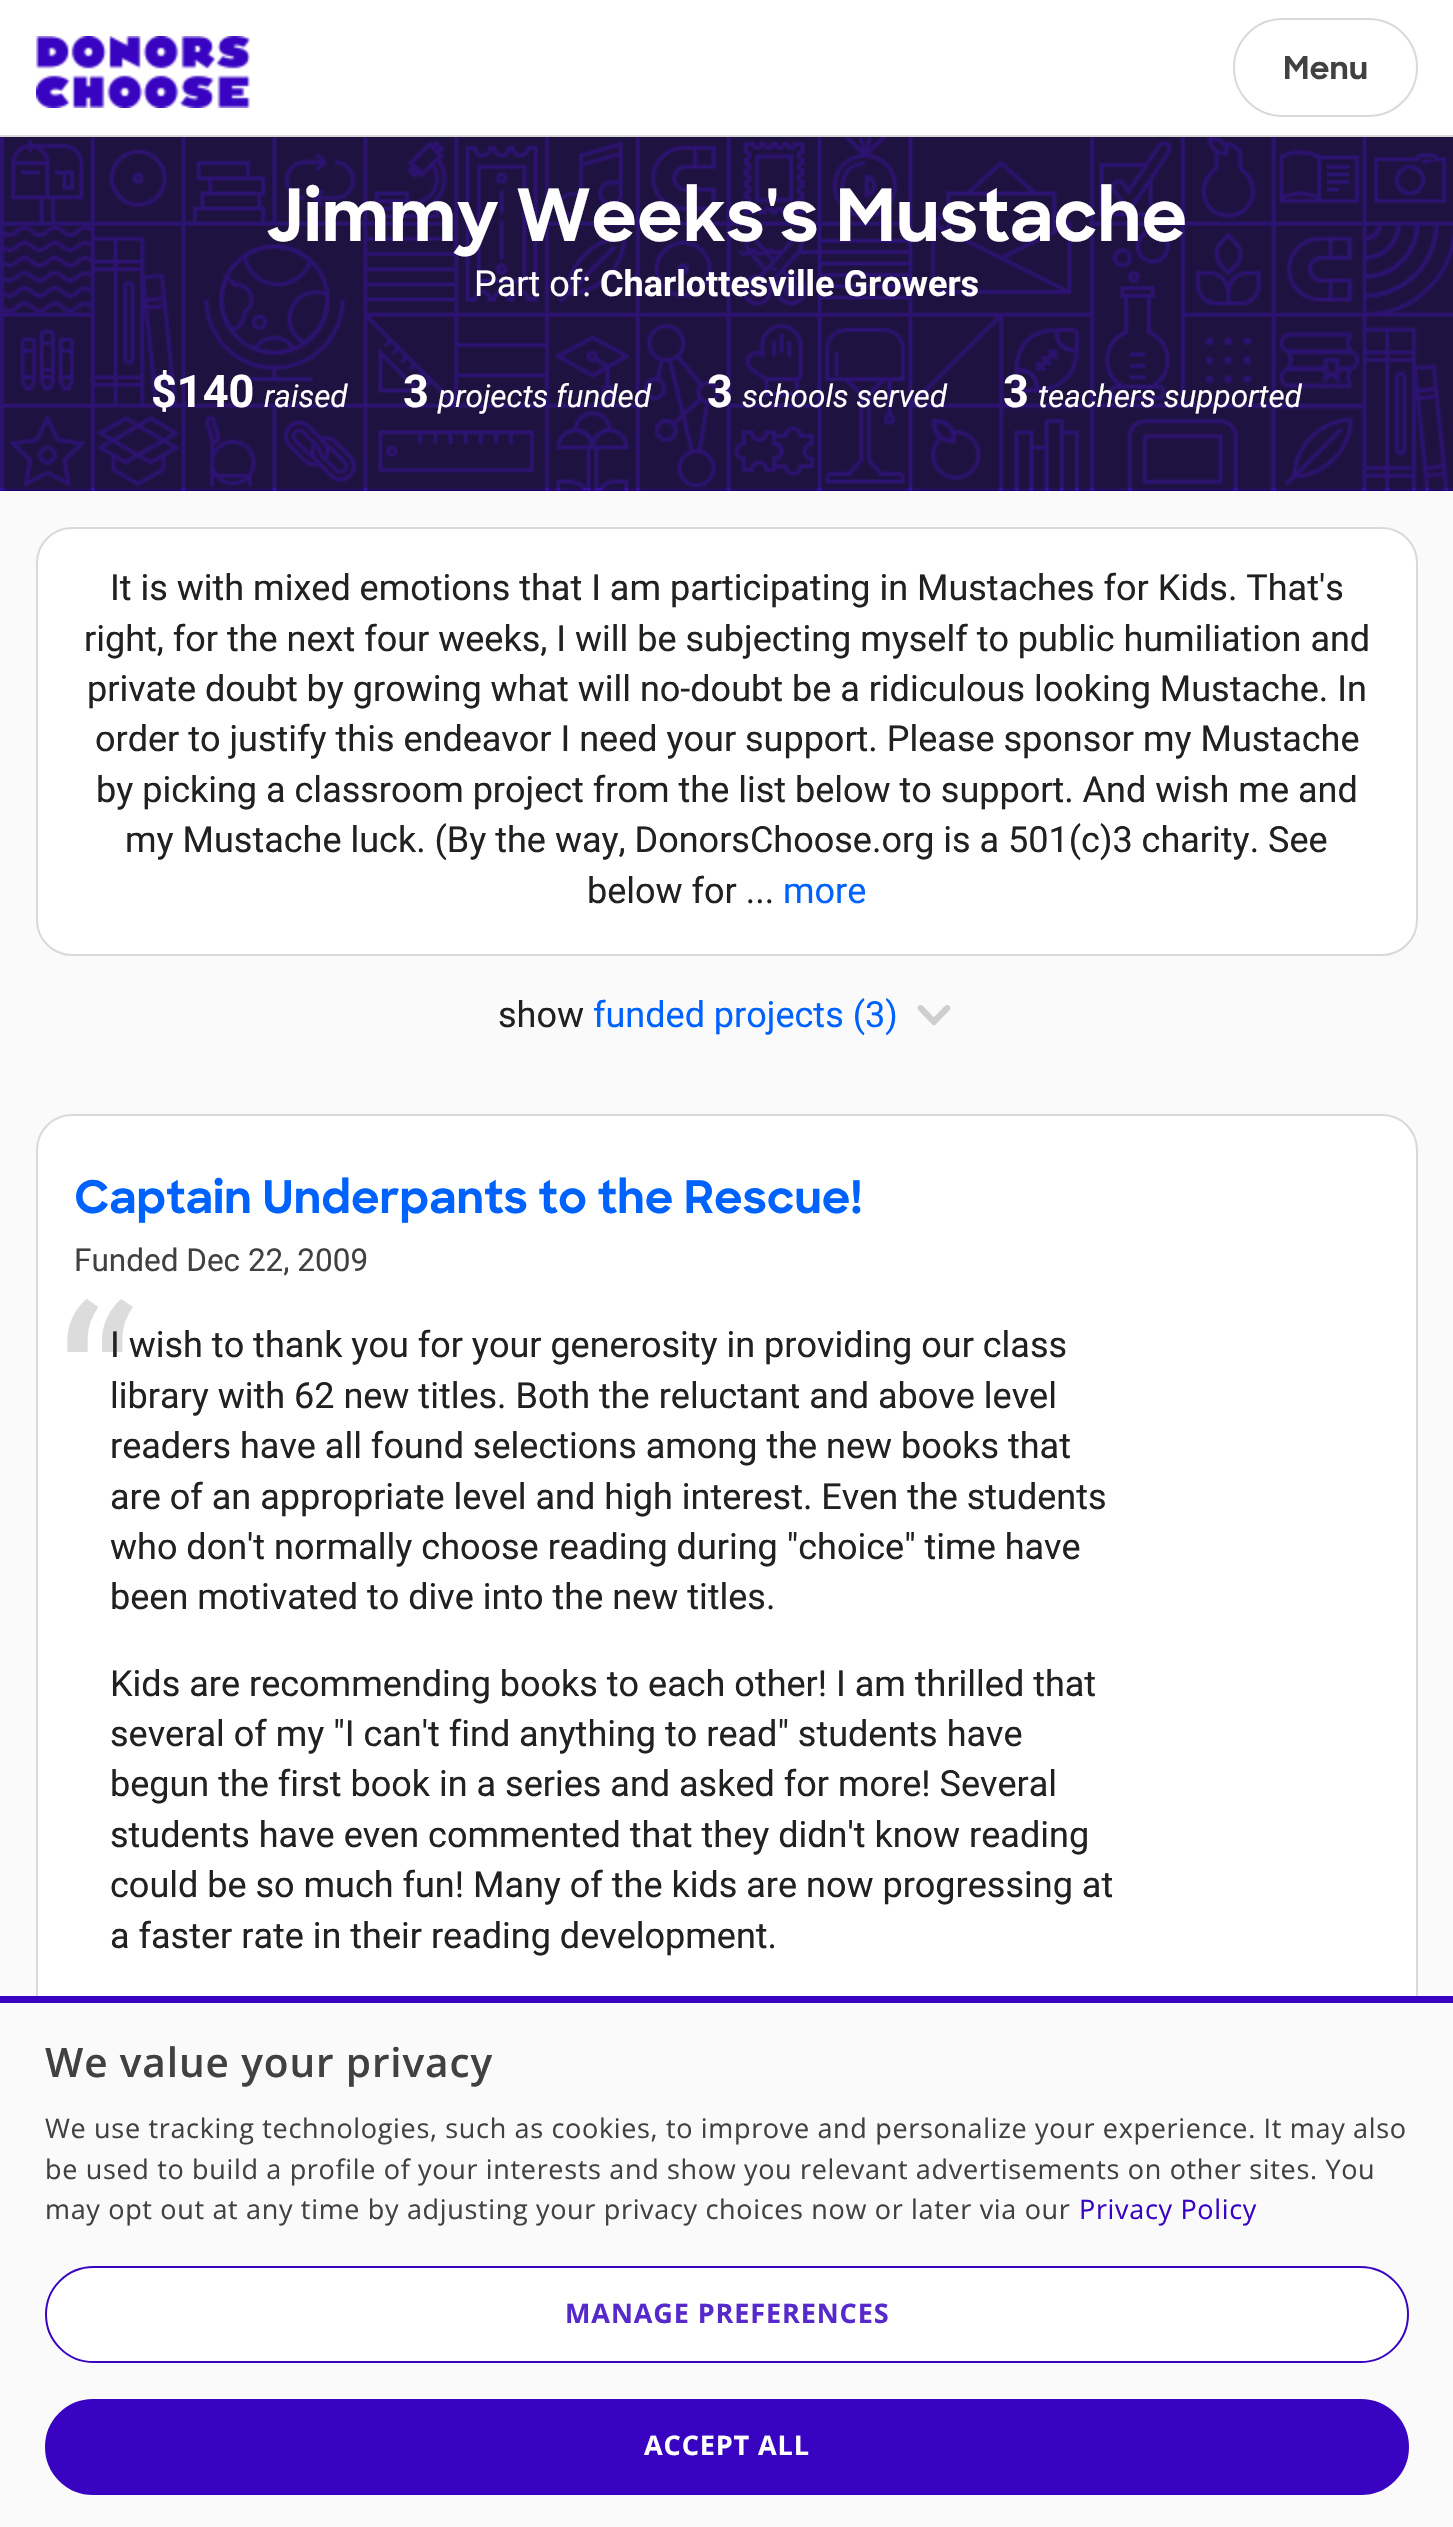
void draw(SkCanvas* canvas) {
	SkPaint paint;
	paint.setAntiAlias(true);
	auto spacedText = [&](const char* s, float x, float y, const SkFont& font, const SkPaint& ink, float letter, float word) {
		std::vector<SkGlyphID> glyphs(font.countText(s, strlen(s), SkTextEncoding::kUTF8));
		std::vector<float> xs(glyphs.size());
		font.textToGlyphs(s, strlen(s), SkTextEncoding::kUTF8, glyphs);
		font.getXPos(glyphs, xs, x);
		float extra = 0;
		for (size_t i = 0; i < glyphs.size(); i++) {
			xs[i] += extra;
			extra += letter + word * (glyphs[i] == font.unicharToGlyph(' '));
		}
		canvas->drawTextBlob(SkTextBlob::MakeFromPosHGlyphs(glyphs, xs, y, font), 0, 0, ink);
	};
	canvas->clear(0xffffffff);
	paint.setColor(0xffd9d9d9);
	canvas->drawRect(SkRect::MakeXYWH(0, 135, 1453, 2), paint);
	canvas->drawImageRect(SkImages::DeferredFromEncodedData(SkData::MakeFromFileName("img1.png")), SkRect::MakeXYWH(36, 36, 214, 72), SkSamplingOptions());
	paint.setStroke(true);
	paint.setStrokeWidth(2);
	canvas->drawRoundRect(SkRect::MakeXYWH(1234, 19, 183, 97), 48.5, 48.5, paint);
	SkFont f1(fontMgr->matchFamilyStyle("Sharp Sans", SkFontStyle::Bold()), 31.5);
	f1.setSubpixel(true);
	paint.setStroke(false);
	paint.setColor(0xff414142);
	canvas->drawString("Menu", 1283, 79, f1, paint);
	paint.setColor(0xfffafafa);
	canvas->drawRect(SkRect::MakeXYWH(0, 491, 1453, 1505), paint);
	paint.setColor(0xff1b0260);
	canvas->drawRect(SkRect::MakeXYWH(0, 488, 1453, 3), paint);
	paint.setColor(0xff1e1241);
	canvas->drawRect(SkRect::MakeXYWH(0, 137, 1453, 351), paint);
	canvas->drawImageRect(SkImages::DeferredFromEncodedData(SkData::MakeFromFileName("img2.png")), SkRect::MakeXYWH(0, 137, 1453, 354), SkSamplingOptions());
	paint.setColor(0x33414142);
	canvas->drawRect(SkRect::MakeXYWH(0, 488, 1453, 2), paint);
	SkFont f2(fontMgr->matchFamilyStyle("Sharp Sans", SkFontStyle::Bold()), 72);
	f2.setSubpixel(true);
	paint.setColor(0xffffffff);
	canvas->drawString("Jimmy Weeks's Mustache", 266, 241, f2, paint);
	SkFont f3(fontMgr->matchFamilyStyle("Roboto", SkFontStyle::Normal()), 36);
	f3.setSubpixel(true);
	canvas->drawString("Part of:", 474, 296, f3, paint);
	SkFont f4(fontMgr->matchFamilyStyle("Roboto", SkFontStyle::Bold()), 36);
	f4.setSubpixel(true);
	canvas->drawString("Charlottesville Growers", 600, 296, f4, paint);
	SkFont f5(fontMgr->matchFamilyStyle("Roboto", SkFontStyle::Bold()), 45);
	f5.setSubpixel(true);
	canvas->drawString("$140", 151, 407, f5, paint);
	SkFont f6(fontMgr->matchFamilyStyle("Roboto", SkFontStyle::Italic()), 31.5);
	f6.setSubpixel(true);
	canvas->drawString("raised", 264, 407, f6, paint);
	canvas->drawString("3", 403, 407, f5, paint);
	canvas->drawString("projects funded", 438, 407, f6, paint);
	canvas->drawString("3", 707, 407, f5, paint);
	canvas->drawString("schools served", 742, 407, f6, paint);
	canvas->drawString("3", 1003, 407, f5, paint);
	canvas->drawString("teachers supported", 1038, 407, f6, paint);
	canvas->drawRoundRect(SkRect::MakeXYWH(37, 528, 1380, 427), 35, 35, paint);
	paint.setStroke(true);
	paint.setColor(0xffd9d9d9);
	canvas->drawRoundRect(SkRect::MakeXYWH(37, 528, 1380, 427), 35, 35, paint);
	paint.setStroke(false);
	paint.setColor(0xff212121);
	canvas->drawString("It is with mixed emotions that I am participating in Mustaches for Kids. That's", 110, 600, f3, paint);
	canvas->drawString("right, for the next four weeks, I will be subjecting myself to public humiliation and", 84, 651, f3, paint);
	canvas->drawString("private doubt by growing what will no-doubt be a ridiculous looking Mustache. In", 87, 701, f3, paint);
	canvas->drawString("order to justify this endeavor I need your support. Please sponsor my Mustache", 95, 751, f3, paint);
	canvas->drawString("by picking a classroom project from the list below to support. And wish me and", 96, 802, f3, paint);
	canvas->drawString("my Mustache luck. (By the way, DonorsChoose.org is a 501(c)3 charity. See", 125, 852, f3, paint);
	canvas->drawString("below for ...", 587, 903, f3, paint);
	paint.setColor(0xff0062fd);
	canvas->drawString("more", 783, 903, f3, paint);
	paint.setColor(0xff212121);
	canvas->drawString("show", 498, 1027, f3, paint);
	paint.setColor(0xff0062fd);
	canvas->drawString("funded projects (3)", 593, 1027, f3, paint);
	canvas->drawImageRect(SkImages::DeferredFromEncodedData(SkData::MakeFromFileName("img3.png")), SkRect::MakeXYWH(917, 1005, 34, 21), SkSamplingOptions());
	paint.setColor(0xffffffff);
	canvas->drawRoundRect(SkRect::MakeXYWH(37, 1115, 1380, 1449), 35, 35, paint);
	paint.setStroke(true);
	paint.setColor(0xffd9d9d9);
	canvas->drawRoundRect(SkRect::MakeXYWH(37, 1115, 1380, 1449), 35, 35, paint);
	SkFont f7(fontMgr->matchFamilyStyle("Sharp Sans", SkFontStyle::Bold()), 45);
	f7.setSubpixel(true);
	paint.setStroke(false);
	paint.setColor(0xff0062fd);
	canvas->drawString("Captain Underpants to the Rescue!", 74, 1213, f7, paint);
	SkFont f8(fontMgr->matchFamilyStyle("Roboto", SkFontStyle::Normal()), 31.5);
	f8.setSubpixel(true);
	paint.setColor(0xff414142);
	canvas->drawString("Funded Dec 22, 2009", 74, 1271, f8, paint);
	SkFont f9(fontMgr->matchFamilyStyle("Roboto", SkFontStyle::Normal()), 225);
	f9.setSubpixel(true);
	paint.setColor(0xffdcdcdc);
	canvas->drawString("“", 56, 1470, f9, paint);
	paint.setColor(0xff212121);
	canvas->drawString("I wish to thank you for your generosity in providing our class", 110, 1357, f3, paint);
	canvas->drawString("library with 62 new titles. Both the reluctant and above level", 110, 1408, f3, paint);
	canvas->drawString("readers have all found selections among the new books that", 110, 1458, f3, paint);
	canvas->drawString("are of an appropriate level and high interest. Even the students", 110, 1509, f3, paint);
	canvas->drawString("who don't normally choose reading during \"choice\" time have", 110, 1559, f3, paint);
	canvas->drawString("been motivated to dive into the new titles.", 110, 1609, f3, paint);
	canvas->drawString("Kids are recommending books to each other! I am thrilled that", 110, 1696, f3, paint);
	canvas->drawString("several of my \"I can't find anything to read\" students have", 110, 1746, f3, paint);
	canvas->drawString("begun the first book in a series and asked for more! Several", 110, 1796, f3, paint);
	canvas->drawString("students have even commented that they didn't know reading", 110, 1847, f3, paint);
	canvas->drawString("could be so much fun! Many of the kids are now progressing at", 110, 1897, f3, paint);
	canvas->drawString("a faster rate in their reading development.", 110, 1948, f3, paint);
	paint.setColor(0xfffafafa);
	canvas->drawRect(SkRect::MakeXYWH(0, 2003, 1453, 524), paint);
	paint.setColor(0xff3804c1);
	canvas->drawRect(SkRect::MakeXYWH(0, 1996, 1453, 7), paint);
	SkFont f10(fontMgr->matchFamilyStyle("Open Sans", SkFontStyle(600, SkFontStyle::kNormal_Width, SkFontStyle::kUpright_Slant)), 40.5);
	f10.setSubpixel(true);
	paint.setColor(0xff414142);
	spacedText("We value your privacy", 45, 2077, f10, paint, 0.9, 0);
	SkFont f11(fontMgr->matchFamilyStyle("Open Sans", SkFontStyle::Normal()), 27);
	f11.setSubpixel(true);
	spacedText("We use tracking technologies, such as cookies, to improve and personalize your experience. It may also", 45, 2138, f11, paint, 0.67, 0);
	spacedText("be used to build a profile of your interests and show you relevant advertisements on other sites. You", 45, 2179, f11, paint, 0.67, 0);
	spacedText("may opt out at any time by adjusting your privacy choices now or later via our", 45, 2219, f11, paint, 0.67, 0);
	paint.setColor(0xff3804c1);
	spacedText("Privacy Policy", 1079, 2219, f11, paint, 0.67, 0);
	paint.setColor(0xffffffff);
	canvas->drawRoundRect(SkRect::MakeXYWH(46, 2267, 1362, 95), 47.5, 47.5, paint);
	paint.setStroke(true);
	paint.setColor(0xff3804c1);
	canvas->drawRoundRect(SkRect::MakeXYWH(46, 2267, 1362, 95), 47.5, 47.5, paint);
	SkFont f12(fontMgr->matchFamilyStyle("Open Sans", SkFontStyle::Bold()), 27);
	f12.setSubpixel(true);
	paint.setStroke(false);
	paint.setColor(0xff562aca);
	spacedText("MANAGE PREFERENCES", 565, 2323, f12, paint, 0.9, 0);
	paint.setColor(0xff3804c1);
	canvas->drawRoundRect(SkRect::MakeXYWH(46, 2400, 1362, 94), 47, 47, paint);
	paint.setStroke(true);
	canvas->drawRoundRect(SkRect::MakeXYWH(46, 2400, 1362, 94), 47, 47, paint);
	paint.setStroke(false);
	paint.setColor(0xffffffff);
	spacedText("ACCEPT ALL", 644, 2455, f12, paint, 0.9, 0);
}
